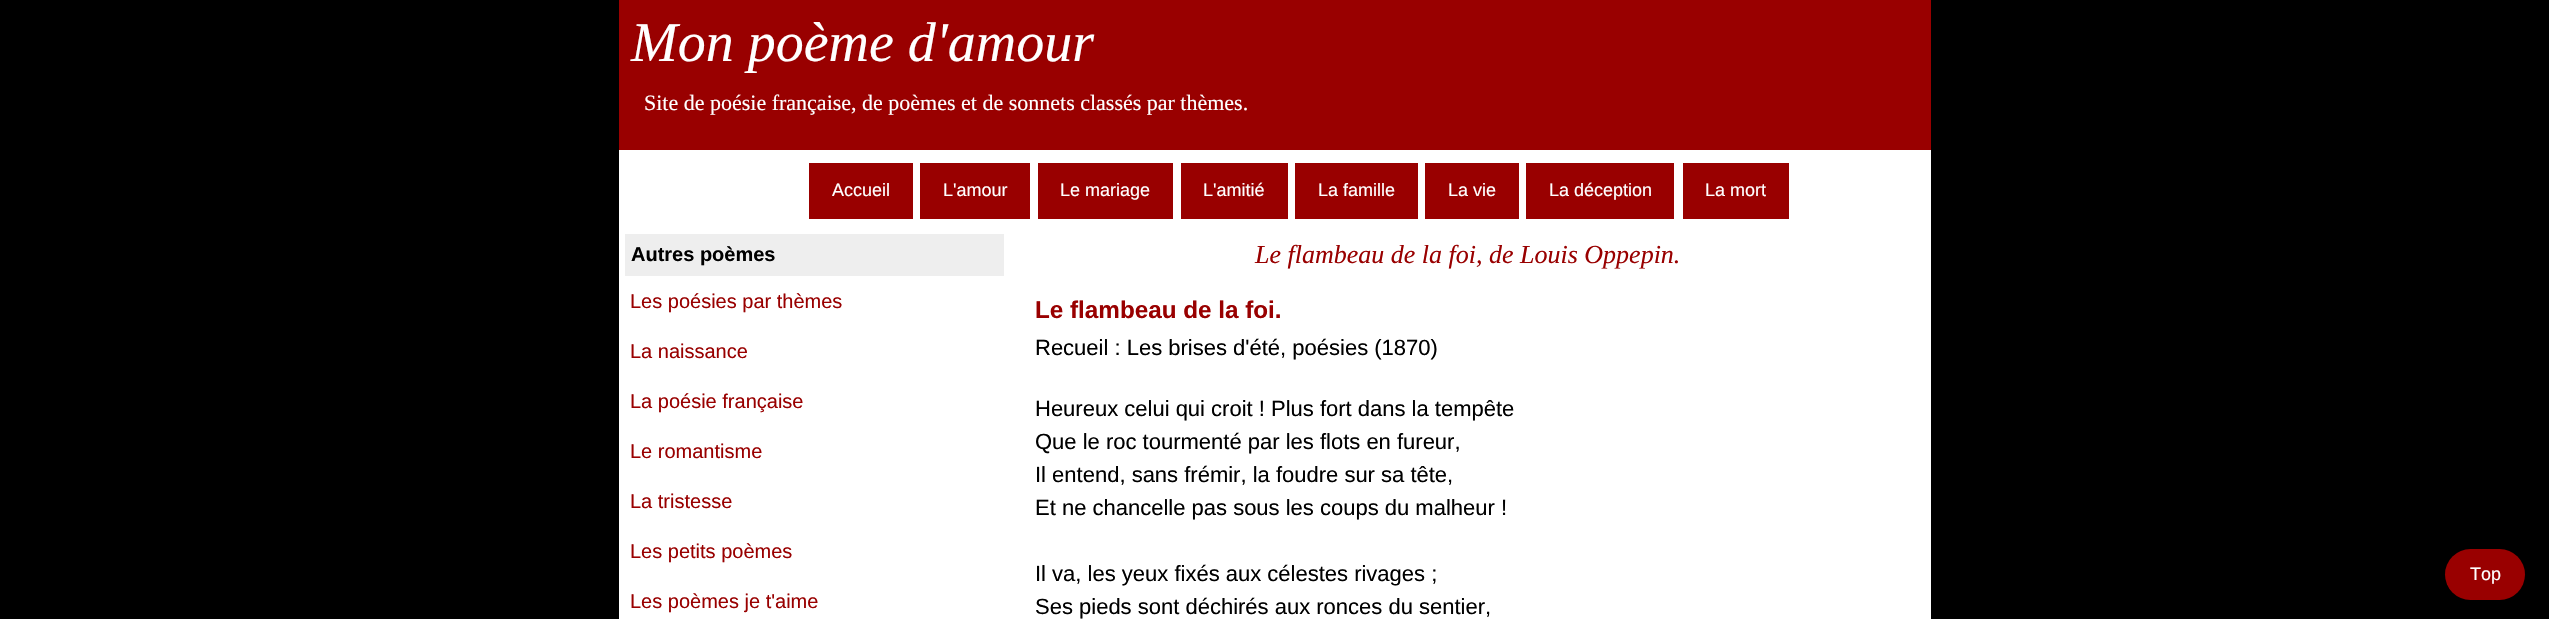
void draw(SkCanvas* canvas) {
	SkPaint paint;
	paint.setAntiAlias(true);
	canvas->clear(0xff000000);
	paint.setColor(0xffffffff);
	canvas->drawRect(SkRect::MakeXYWH(619, 150, 1312, 469), paint);
	paint.setColor(0xff990000);
	canvas->drawRect(SkRect::MakeXYWH(619, 0, 1312, 150), paint);
	SkFont f1(fontMgr->matchFamilyStyle("Liberation Serif", SkFontStyle::Italic()), 56);
	f1.setSubpixel(true);
	paint.setColor(0xffffffff);
	canvas->drawString("Mon poème d'amour", 631, 61, f1, paint);
	SkFont f2(fontMgr->matchFamilyStyle("Liberation Serif", SkFontStyle::Normal()), 22);
	f2.setSubpixel(true);
	canvas->drawString("Site de poésie française, de poèmes et de sonnets classés par thèmes.", 644, 110, f2, paint);
	paint.setColor(0xff990000);
	canvas->drawRect(SkRect::MakeXYWH(809, 163, 104, 56), paint);
	SkFont f3(fontMgr->matchFamilyStyle("Liberation Sans", SkFontStyle::Normal()), 18);
	f3.setSubpixel(true);
	paint.setColor(0xffffffff);
	canvas->drawString("Accueil", 832, 196, f3, paint);
	paint.setColor(0xff990000);
	canvas->drawRect(SkRect::MakeXYWH(920, 163, 110, 56), paint);
	paint.setColor(0xffffffff);
	canvas->drawString("L'amour", 943, 196, f3, paint);
	paint.setColor(0xff990000);
	canvas->drawRect(SkRect::MakeXYWH(1038, 163, 135, 56), paint);
	paint.setColor(0xffffffff);
	canvas->drawString("Le mariage", 1060, 196, f3, paint);
	paint.setColor(0xff990000);
	canvas->drawRect(SkRect::MakeXYWH(1181, 163, 107, 56), paint);
	paint.setColor(0xffffffff);
	canvas->drawString("L'amitié", 1203, 196, f3, paint);
	paint.setColor(0xff990000);
	canvas->drawRect(SkRect::MakeXYWH(1295, 163, 123, 56), paint);
	paint.setColor(0xffffffff);
	canvas->drawString("La famille", 1318, 196, f3, paint);
	paint.setColor(0xff990000);
	canvas->drawRect(SkRect::MakeXYWH(1425, 163, 94, 56), paint);
	paint.setColor(0xffffffff);
	canvas->drawString("La vie", 1448, 196, f3, paint);
	paint.setColor(0xff990000);
	canvas->drawRect(SkRect::MakeXYWH(1526, 163, 148, 56), paint);
	paint.setColor(0xffffffff);
	canvas->drawString("La déception", 1549, 196, f3, paint);
	paint.setColor(0xff990000);
	canvas->drawRect(SkRect::MakeXYWH(1683, 163, 106, 56), paint);
	paint.setColor(0xffffffff);
	canvas->drawString("La mort", 1705, 196, f3, paint);
	paint.setColor(0xffeeeeee);
	canvas->drawRect(SkRect::MakeXYWH(625, 234, 379, 42), paint);
	SkFont f4(fontMgr->matchFamilyStyle("Liberation Sans", SkFontStyle::Bold()), 20);
	f4.setSubpixel(true);
	paint.setColor(0xff000000);
	canvas->drawString("Autres poèmes", 631, 261, f4, paint);
	SkFont f5(fontMgr->matchFamilyStyle("Liberation Sans", SkFontStyle::Normal()), 20);
	f5.setSubpixel(true);
	paint.setColor(0xff990000);
	canvas->drawString("Les poésies par thèmes", 630, 308, f5, paint);
	canvas->drawString("La naissance", 630, 358, f5, paint);
	canvas->drawString("La poésie française", 630, 408, f5, paint);
	canvas->drawString("Le romantisme", 630, 458, f5, paint);
	canvas->drawString("La tristesse", 630, 508, f5, paint);
	canvas->drawString("Les petits poèmes", 630, 558, f5, paint);
	canvas->drawString("Les poèmes je t'aime", 630, 608, f5, paint);
	SkFont f6(fontMgr->matchFamilyStyle("Liberation Serif", SkFontStyle::Italic()), 26);
	f6.setSubpixel(true);
	canvas->drawString("Le flambeau de la foi, de Louis Oppepin.", 1255, 263, f6, paint);
	SkFont f7(fontMgr->matchFamilyStyle("Liberation Sans", SkFontStyle::Bold()), 24.25);
	f7.setSubpixel(true);
	canvas->drawString("Le flambeau de la foi.", 1035, 318, f7, paint);
	SkFont f8(fontMgr->matchFamilyStyle("Liberation Sans", SkFontStyle::Normal()), 22);
	f8.setSubpixel(true);
	paint.setColor(0xff000000);
	canvas->drawString("Recueil : Les brises d'été, poésies (1870)", 1035, 355, f8, paint);
	canvas->drawString("Heureux celui qui croit ! Plus fort dans la tempête", 1035, 416, f8, paint);
	canvas->drawString("Que le roc tourmenté par les flots en fureur,", 1035, 449, f8, paint);
	canvas->drawString("Il entend, sans frémir, la foudre sur sa tête,", 1035, 482, f8, paint);
	canvas->drawString("Et ne chancelle pas sous les coups du malheur !", 1035, 515, f8, paint);
	canvas->drawString("Il va, les yeux fixés aux célestes rivages ;", 1035, 581, f8, paint);
	canvas->drawString("Ses pieds sont déchirés aux ronces du sentier,", 1035, 614, f8, paint);
	paint.setColor(0xff990000);
	canvas->drawRoundRect(SkRect::MakeXYWH(2445, 549, 80, 51), 25.5, 25.5, paint);
	paint.setColor(0xffffffff);
	canvas->drawString("Top", 2470, 580, f3, paint);
}
